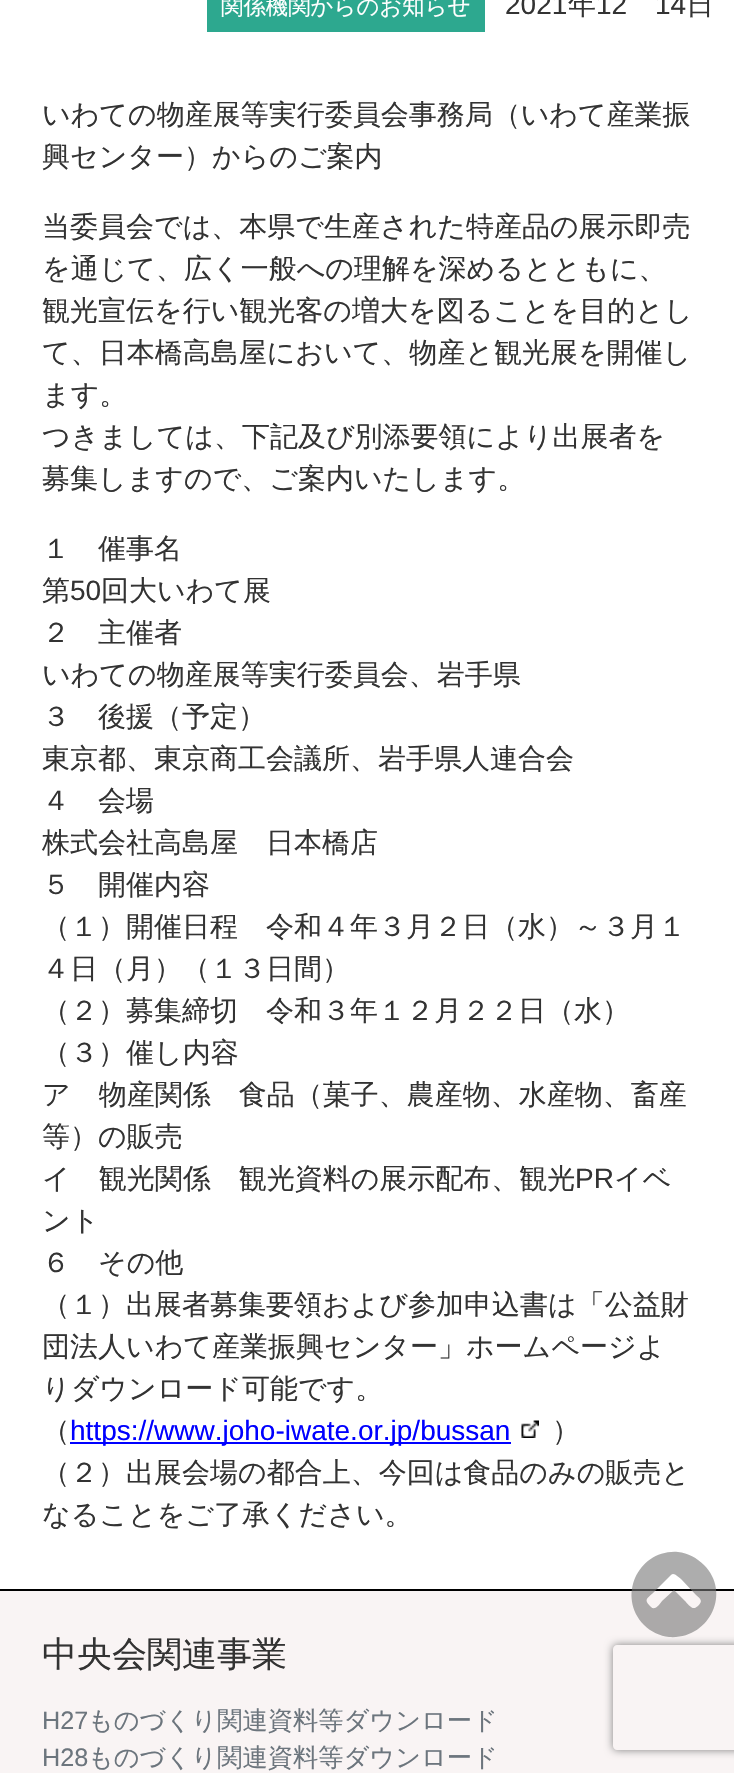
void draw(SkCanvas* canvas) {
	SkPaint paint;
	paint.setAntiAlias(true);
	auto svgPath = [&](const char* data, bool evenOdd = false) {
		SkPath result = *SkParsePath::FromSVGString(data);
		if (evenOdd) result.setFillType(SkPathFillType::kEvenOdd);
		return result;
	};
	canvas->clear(0xffffffff);
	paint.setColor(0xff2da88f);
	canvas->drawRect(SkRect::MakeXYWH(207, 0, 278, 32), paint);
	SkFont f1(fontMgr->matchFamilyStyle("WenQuanYi Zen Hei", SkFontStyle(500, SkFontStyle::kNormal_Width, SkFontStyle::kUpright_Slant)), 22.4);
	f1.setSubpixel(true);
	paint.setColor(0xffffffff);
	canvas->drawString("関係機関からのお知らせ", 221, 14, f1, paint);
	SkFont f2(fontMgr->matchFamilyStyle("Liberation Sans", SkFontStyle::Normal()), 28);
	f2.setSubpixel(true);
	paint.setColor(0xff333333);
	canvas->drawString("2021", 505, 14, f2, paint);
	SkFont f3(fontMgr->matchFamilyStyle("WenQuanYi Zen Hei", SkFontStyle(500, SkFontStyle::kNormal_Width, SkFontStyle::kUpright_Slant)), 28);
	f3.setSubpixel(true);
	canvas->drawString("年", 568, 14, f3, paint);
	canvas->drawString("12", 596, 14, f2, paint);
	canvas->drawString("14", 655, 14, f2, paint);
	canvas->drawString("日", 686, 14, f3, paint);
	canvas->drawString("いわての物産展等実行委員会事務局（いわて産業振", 42, 124, f3, paint);
	canvas->drawString("興センター）からのご案内", 42, 166, f3, paint);
	canvas->drawString("当委員会では、本県で生産された特産品の展示即売", 42, 236, f3, paint);
	canvas->drawString("を通じて、広く一般への理解を深めるとともに、", 42, 278, f3, paint);
	canvas->drawString("観光宣伝を行い観光客の増大を図ることを目的とし", 42, 320, f3, paint);
	canvas->drawString("て、日本橋高島屋において、物産と観光展を開催し", 42, 362, f3, paint);
	canvas->drawString("ます。", 42, 404, f3, paint);
	canvas->drawString("つきましては、下記及び別添要領により出展者を", 42, 446, f3, paint);
	canvas->drawString("募集しますので、ご案内いたします。", 42, 488, f3, paint);
	canvas->drawString("１　催事名", 42, 558, f3, paint);
	canvas->drawString("第", 42, 600, f3, paint);
	canvas->drawString("50", 70, 600, f2, paint);
	canvas->drawString("回大いわて展", 101, 600, f3, paint);
	canvas->drawString("２　主催者", 42, 642, f3, paint);
	canvas->drawString("いわての物産展等実行委員会、岩手県", 42, 684, f3, paint);
	canvas->drawString("３　後援（予定）", 42, 726, f3, paint);
	canvas->drawString("東京都、東京商工会議所、岩手県人連合会", 42, 768, f3, paint);
	canvas->drawString("４　会場", 42, 810, f3, paint);
	canvas->drawString("株式会社高島屋　日本橋店", 42, 852, f3, paint);
	canvas->drawString("５　開催内容", 42, 894, f3, paint);
	canvas->drawString("（１）開催日程　令和４年３月２日（水）～３月１", 42, 936, f3, paint);
	canvas->drawString("４日（月）（１３日間）", 42, 978, f3, paint);
	canvas->drawString("（２）募集締切　令和３年１２月２２日（水）", 42, 1020, f3, paint);
	canvas->drawString("（３）催し内容", 42, 1062, f3, paint);
	canvas->drawString("ア　物産関係　食品（菓子、農産物、水産物、畜産", 42, 1104, f3, paint);
	canvas->drawString("等）の販売", 42, 1146, f3, paint);
	canvas->drawString("イ　観光関係　観光資料の展示配布、観光", 42, 1188, f3, paint);
	canvas->drawString("PR", 575, 1188, f2, paint);
	canvas->drawString("イベ", 614, 1188, f3, paint);
	canvas->drawString("ント", 42, 1230, f3, paint);
	canvas->drawString("６　その他", 42, 1272, f3, paint);
	canvas->drawString("（１）出展者募集要領および参加申込書は「公益財", 42, 1314, f3, paint);
	canvas->drawString("団法人いわて産業振興センター」ホームページよ", 42, 1356, f3, paint);
	canvas->drawString("りダウンロード可能です。", 42, 1398, f3, paint);
	canvas->drawString("（", 42, 1440, f3, paint);
	paint.setColor(0xff0000ff);
	canvas->drawRect(SkRect::MakeXYWH(70, 1442, 441, 2), paint);
	canvas->drawString("https://www.joho-iwate.or.jp/bussan", 70, 1440, f2, paint);
	canvas->drawImageRect(SkImages::DeferredFromEncodedData(SkData::MakeFromFileName("img1.png")), SkRect::MakeXYWH(521, 1420, 18, 18), SkSamplingOptions());
	paint.setColor(0xff333333);
	canvas->drawString("）", 552, 1440, f3, paint);
	canvas->drawString("（２）出展会場の都合上、今回は食品のみの販売と", 42, 1482, f3, paint);
	canvas->drawString("なることをご了承ください。", 42, 1524, f3, paint);
	paint.setColor(0xfff9f4f4);
	canvas->drawRect(SkRect::MakeXYWH(0, 1591, 734, 182), paint);
	paint.setColor(0xff000000);
	canvas->drawRect(SkRect::MakeXYWH(0, 1589, 734, 2), paint);
	paint.setColor(0x99777777);
	canvas->drawPath(svgPath("M644 1625C616 1596 639 1549 678 1552C688 1553 697 1558 704 1565C732 1593 709 1640 669 1637C660 1636 651 1632 644 1625ZM671 1575L655 1591C647 1599 643 1599 651 1607C655 1611 660 1604 662 1601L674 1590L685 1601C687 1603 691 1609 695 1608L698 1606C703 1601 701 1599 696 1595L681 1579C678 1577 674 1572 671 1575Z"), paint);
	SkFont f4(fontMgr->matchFamilyStyle("WenQuanYi Zen Hei", SkFontStyle(500, SkFontStyle::kNormal_Width, SkFontStyle::kUpright_Slant)), 35);
	f4.setSubpixel(true);
	paint.setColor(0xff333333);
	canvas->drawString("中央会関連事業", 42, 1666, f4, paint);
	SkFont f5(fontMgr->matchFamilyStyle("Liberation Sans", SkFontStyle::Normal()), 25.25);
	f5.setSubpixel(true);
	paint.setColor(0xff6c757d);
	canvas->drawString("H27", 42, 1729, f5, paint);
	SkFont f6(fontMgr->matchFamilyStyle("WenQuanYi Zen Hei", SkFontStyle(500, SkFontStyle::kNormal_Width, SkFontStyle::kUpright_Slant)), 25.25);
	f6.setSubpixel(true);
	canvas->drawString("ものづくり関連資料等ダウンロード", 88, 1729, f6, paint);
	canvas->drawString("H28", 42, 1766, f5, paint);
	canvas->drawString("ものづくり関連資料等ダウンロード", 88, 1766, f6, paint);
	canvas->save();
	canvas->clipPath(svgPath("M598 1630H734V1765H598ZM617 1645H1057C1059 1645 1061 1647 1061 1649V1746C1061 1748 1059 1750 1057 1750H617C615 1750 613 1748 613 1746V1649C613 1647 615 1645 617 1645Z", true), true);
	paint.setColor(0xff808080);
	paint.setMaskFilter(SkMaskFilter::MakeBlur(kNormal_SkBlurStyle, 4.5));
	canvas->drawRoundRect(SkRect::MakeXYWH(613, 1645, 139, 105), 4, 4, paint);
	paint.setMaskFilter(nullptr);
	canvas->restore();
}
